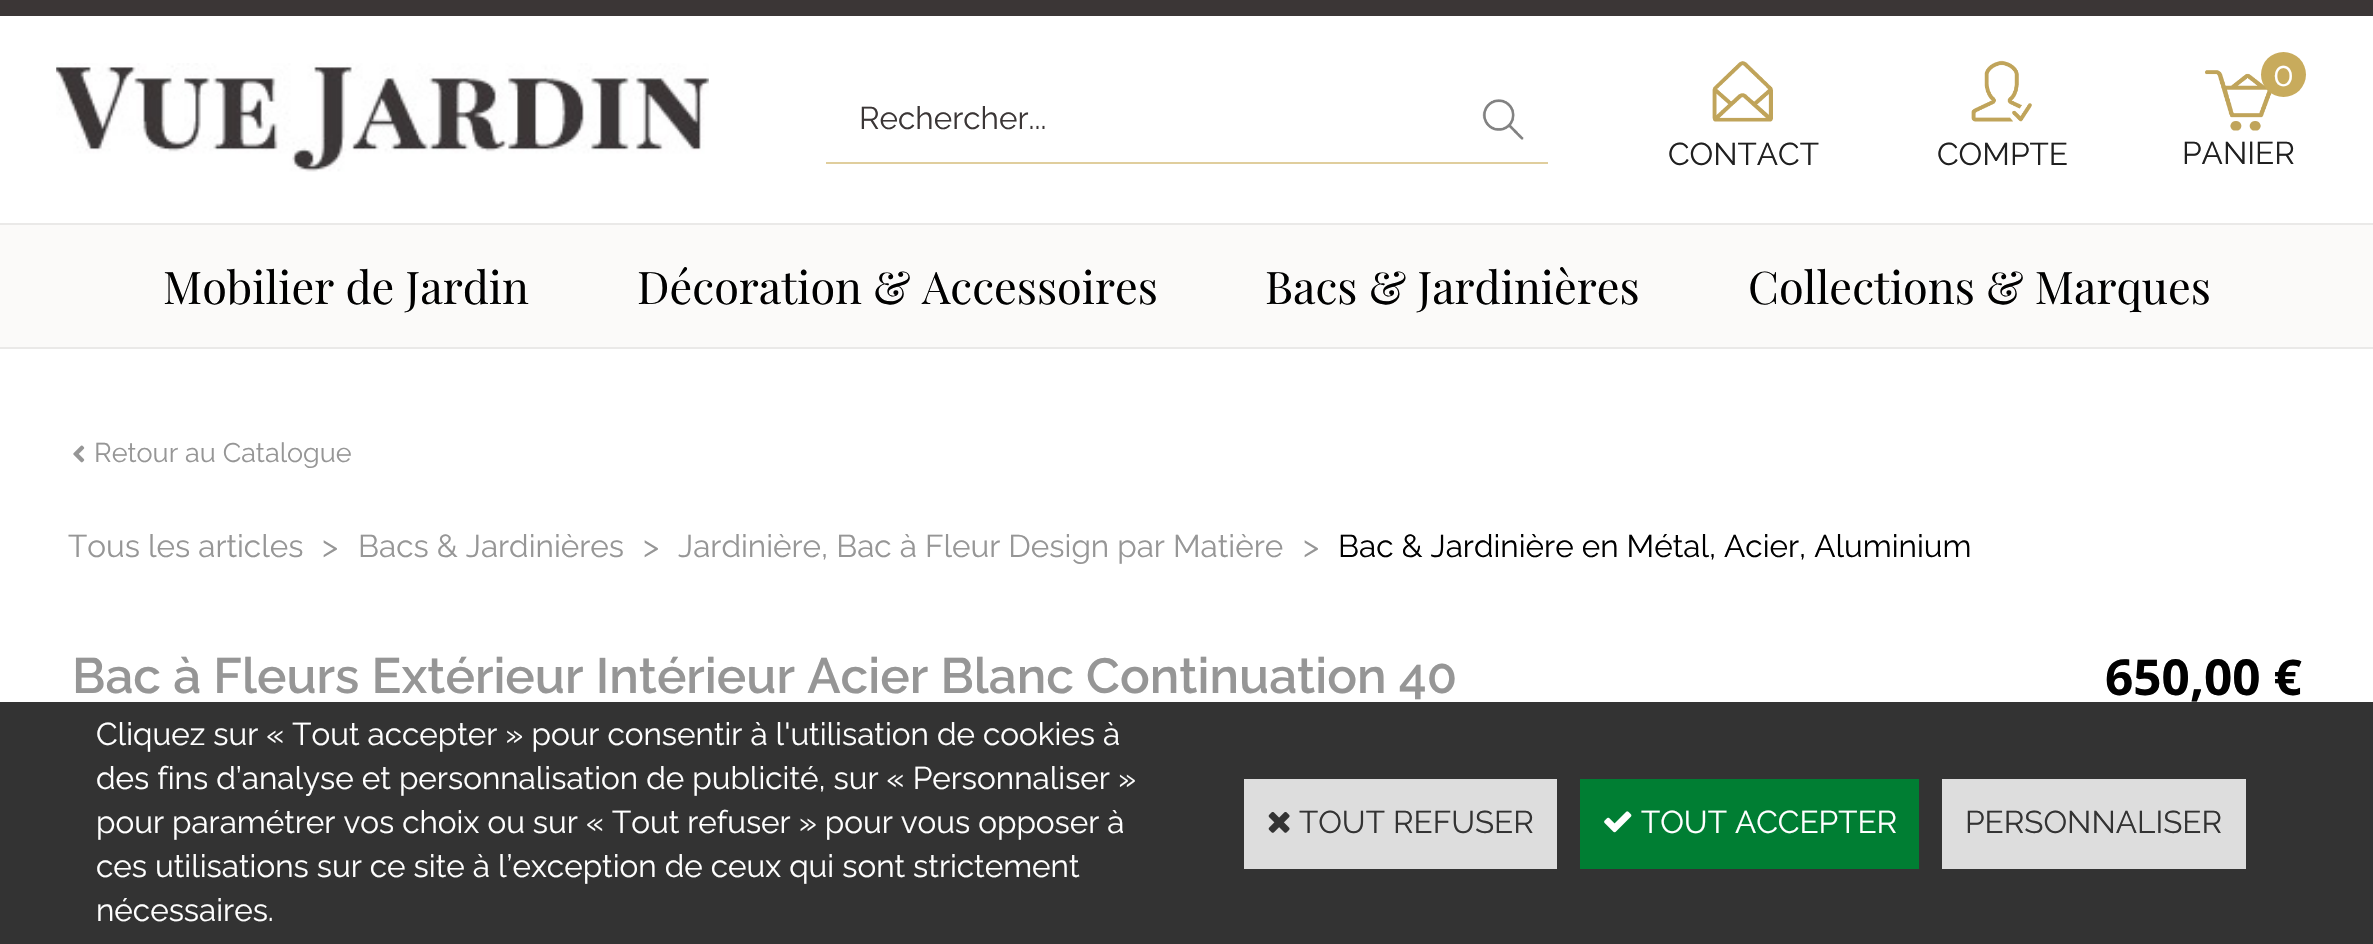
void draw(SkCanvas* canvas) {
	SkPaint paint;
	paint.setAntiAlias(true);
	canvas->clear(0xffffffff);
	paint.setColor(0xff3b3636);
	canvas->drawRect(SkRect::MakeXYWH(0, 0, 2373, 16), paint);
	canvas->drawImageRect(SkImages::DeferredFromEncodedData(SkData::MakeFromFileName("img1.png")), SkRect::MakeXYWH(56, 63, 653, 109), SkSamplingOptions());
	paint.setColor(0xffe0ce9d);
	canvas->drawRect(SkRect::MakeXYWH(826, 162, 722, 2), paint);
	SkFont f1(fontMgr->matchFamilyStyle("Raleway", SkFontStyle::Normal()), 31.5);
	f1.setSubpixel(true);
	paint.setColor(0xff3b3636);
	canvas->drawString("Rechercher...", 859, 129, f1, paint);
	canvas->drawImageRect(SkImages::DeferredFromEncodedData(SkData::MakeFromFileName("img2.png")), SkRect::MakeXYWH(1482, 99, 42, 41), SkSamplingOptions());
	canvas->drawImageRect(SkImages::DeferredFromEncodedData(SkData::MakeFromFileName("img3.png")), SkRect::MakeXYWH(1712, 61, 61, 61), SkSamplingOptions());
	paint.setColor(0xff202020);
	canvas->drawString("CONTACT", 1668, 165, f1, paint);
	canvas->drawImageRect(SkImages::DeferredFromEncodedData(SkData::MakeFromFileName("img4.png")), SkRect::MakeXYWH(1971, 60, 61, 62), SkSamplingOptions());
	canvas->drawString("COMPTE", 1937, 165, f1, paint);
	canvas->drawImageRect(SkImages::DeferredFromEncodedData(SkData::MakeFromFileName("img5.png")), SkRect::MakeXYWH(2205, 70, 67, 61), SkSamplingOptions());
	paint.setColor(0xffc8ab5c);
	canvas->drawCircle(2283.5, 74.5, 22.5, paint);
	SkFont f2(fontMgr->matchFamilyStyle("Raleway", SkFontStyle::Normal()), 34);
	f2.setSubpixel(true);
	paint.setColor(0xffffffff);
	canvas->drawString("0", 2273, 86, f2, paint);
	paint.setColor(0xff202020);
	canvas->drawString("PANIER", 2182, 164, f1, paint);
	paint.setColor(0xfffbfaf9);
	canvas->drawRect(SkRect::MakeXYWH(0, 225, 2373, 122), paint);
	paint.setColor(0xffeae9e8);
	canvas->drawRect(SkRect::MakeXYWH(0, 223, 2373, 2), paint);
	canvas->drawRect(SkRect::MakeXYWH(0, 347, 2373, 2), paint);
	SkFont f3(fontMgr->matchFamilyStyle("Playfair Display", SkFontStyle::Normal()), 45);
	f3.setSubpixel(true);
	paint.setColor(0xff000000);
	canvas->drawString("Mobilier de Jardin", 163, 304, f3, paint);
	canvas->drawString("Décoration & Accessoires", 637, 304, f3, paint);
	canvas->drawString("Bacs & Jardinières", 1265, 304, f3, paint);
	canvas->drawString("Collections & Marques", 1748, 304, f3, paint);
	canvas->drawImageRect(SkImages::DeferredFromEncodedData(SkData::MakeFromFileName("img6.png")), SkRect::MakeXYWH(73, 445, 12, 18), SkSamplingOptions());
	SkFont f4(fontMgr->matchFamilyStyle("Raleway", SkFontStyle::Normal()), 27);
	f4.setSubpixel(true);
	paint.setColor(0xff969696);
	canvas->drawString("Retour au Catalogue", 94, 462, f4, paint);
	canvas->drawString("Tous les articles", 68, 557, f1, paint);
	canvas->drawString(">", 322, 557, f1, paint);
	canvas->drawString("Bacs & Jardinières", 358, 557, f1, paint);
	canvas->drawString(">", 643, 557, f1, paint);
	canvas->drawString("Jardinière, Bac à Fleur Design par Matière", 678, 557, f1, paint);
	canvas->drawString(">", 1303, 557, f1, paint);
	paint.setColor(0xff000000);
	canvas->drawString("Bac & Jardinière en Métal, Acier, Aluminium", 1338, 557, f1, paint);
	SkFont f5(fontMgr->matchFamilyStyle("Raleway", SkFontStyle(600, SkFontStyle::kNormal_Width, SkFontStyle::kUpright_Slant)), 49.5);
	f5.setSubpixel(true);
	paint.setColor(0xff969696);
	canvas->drawString("Bac à Fleurs Extérieur Intérieur Acier Blanc Continuation 40", 72, 693, f5, paint);
	SkFont f6(fontMgr->matchFamilyStyle("Open Sans", SkFontStyle::Bold()), 49.5);
	f6.setSubpixel(true);
	paint.setColor(0xff000000);
	canvas->drawString("650,00 €", 2105, 695, f6, paint);
	paint.setColor(0xff333333);
	canvas->drawRect(SkRect::MakeXYWH(0, 702, 2373, 242), paint);
	paint.setColor(0xffffffff);
	canvas->drawString("Cliquez sur « Tout accepter » pour consentir à l'utilisation de cookies à", 96, 745, f1, paint);
	canvas->drawString("des fins d’analyse et personnalisation de publicité, sur « Personnaliser »", 96, 789, f1, paint);
	canvas->drawString("pour paramétrer vos choix ou sur « Tout refuser » pour vous opposer à", 96, 833, f1, paint);
	canvas->drawString("ces utilisations sur ce site à l’exception de ceux qui sont strictement", 96, 877, f1, paint);
	canvas->drawString("nécessaires.", 96, 921, f1, paint);
	paint.setColor(0xffdddddd);
	canvas->drawRect(SkRect::MakeXYWH(1244, 779, 313, 90), paint);
	canvas->drawImageRect(SkImages::DeferredFromEncodedData(SkData::MakeFromFileName("img7.png")), SkRect::MakeXYWH(1268, 812, 22, 21), SkSamplingOptions());
	paint.setColor(0xff333333);
	canvas->drawString("TOUT REFUSER", 1299, 833, f1, paint);
	paint.setColor(0xff007e33);
	canvas->drawRect(SkRect::MakeXYWH(1580, 779, 339, 90), paint);
	canvas->drawImageRect(SkImages::DeferredFromEncodedData(SkData::MakeFromFileName("img8.png")), SkRect::MakeXYWH(1604, 811, 28, 22), SkSamplingOptions());
	paint.setColor(0xffffffff);
	canvas->drawString("TOUT ACCEPTER", 1641, 833, f1, paint);
	paint.setColor(0xffdddddd);
	canvas->drawRect(SkRect::MakeXYWH(1942, 779, 304, 90), paint);
	paint.setColor(0xff333333);
	canvas->drawString("PERSONNALISER", 1965, 833, f1, paint);
}
